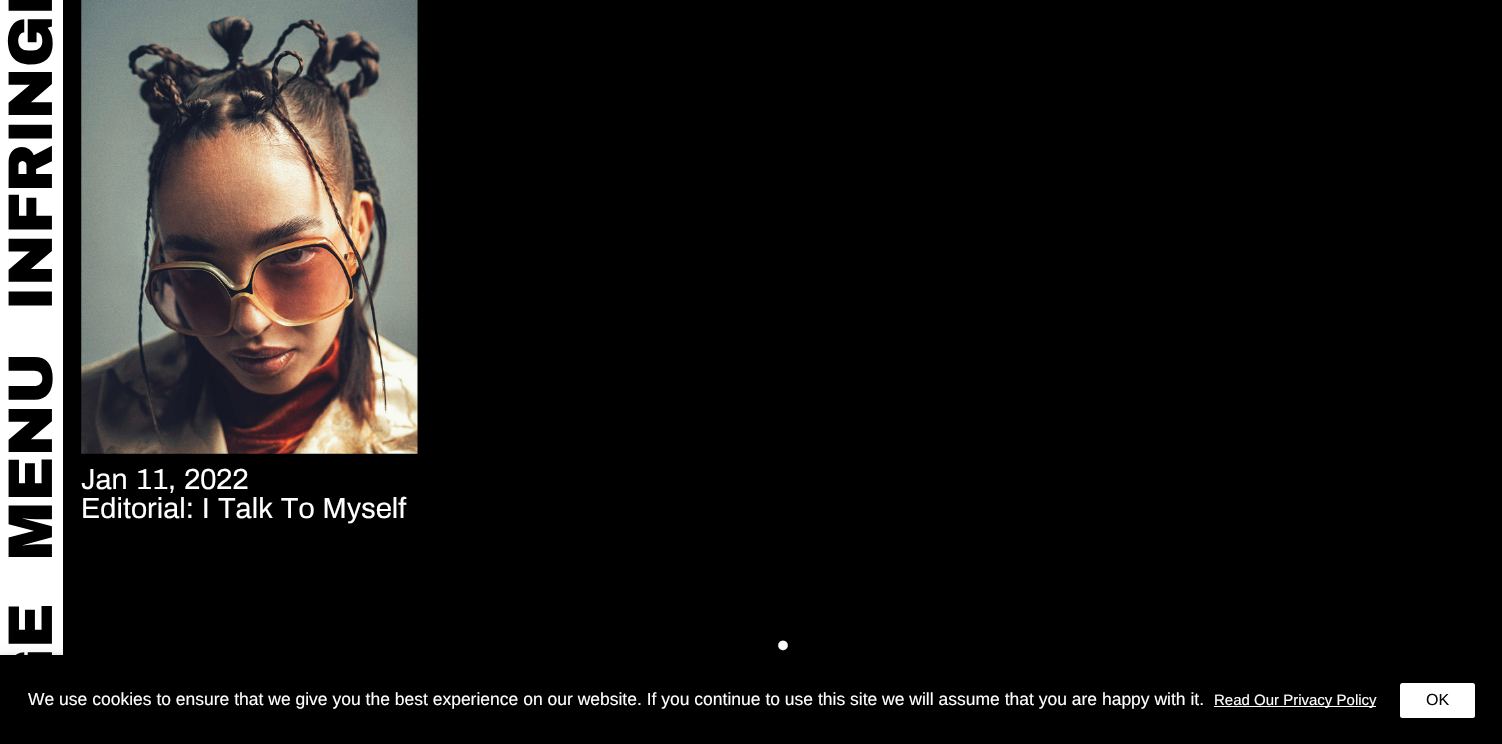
void draw(SkCanvas* canvas) {
	SkPaint paint;
	paint.setAntiAlias(true);
	canvas->clear(0xffffffff);
	canvas->drawImageRect(SkImages::DeferredFromEncodedData(SkData::MakeFromFileName("img1.png")), SkRect::MakeXYWH(7, 0, 46, 655), SkSamplingOptions());
	paint.setColor(0xff000000);
	canvas->drawRect(SkRect::MakeXYWH(63, 0, 1439, 655), paint);
	canvas->drawImageRect(SkImages::DeferredFromEncodedData(SkData::MakeFromFileName("img2.png")), SkRect::MakeXYWH(81, 0, 337, 454), SkSamplingOptions());
	SkFont f1(fontMgr->matchFamilyStyle("Archivo", SkFontStyle::Normal()), 29);
	f1.setSubpixel(true);
	paint.setColor(0xffffffff);
	canvas->drawString("Jan 11, 2022", 81, 489, f1, paint);
	canvas->drawString("Editorial: I Talk To Myself", 81, 518, f1, paint);
	SkFont f2(fontMgr->matchFamilyStyle("Liberation Serif", SkFontStyle::Normal()), 80);
	f2.setSubpixel(true);
	canvas->drawString(".", 773, 649, f2, paint);
	paint.setColor(0x80000000);
	paint.setMaskFilter(SkMaskFilter::MakeBlur(kNormal_SkBlurStyle, 6));
	canvas->drawRect(SkRect::MakeXYWH(0, 661, 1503, 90), paint);
	paint.setMaskFilter(nullptr);
	paint.setColor(0xff000000);
	canvas->drawRect(SkRect::MakeXYWH(0, 655, 1502, 89), paint);
	SkFont f3(fontMgr->matchFamilyStyle("Liberation Sans", SkFontStyle::Normal()), 17.5);
	f3.setSubpixel(true);
	paint.setColor(0xffffffff);
	canvas->drawString("We use cookies to ensure that we give you the best experience on our website. If you continue to use this site we will assume that you are happy with it.", 28, 705, f3, paint);
	canvas->drawRect(SkRect::MakeXYWH(1214, 706, 162, 1), paint);
	SkFont f4(fontMgr->matchFamilyStyle("Liberation Sans", SkFontStyle::Normal()), 15);
	f4.setSubpixel(true);
	canvas->drawString("Read Our Privacy Policy", 1214, 705, f4, paint);
	canvas->drawRoundRect(SkRect::MakeXYWH(1400, 683, 75, 35), 2.5, 2.5, paint);
	SkFont f5(fontMgr->matchFamilyStyle("Liberation Sans", SkFontStyle::Normal()), 16);
	f5.setSubpixel(true);
	paint.setColor(0xff0a0a0a);
	canvas->drawString("OK", 1426, 705, f5, paint);
}
